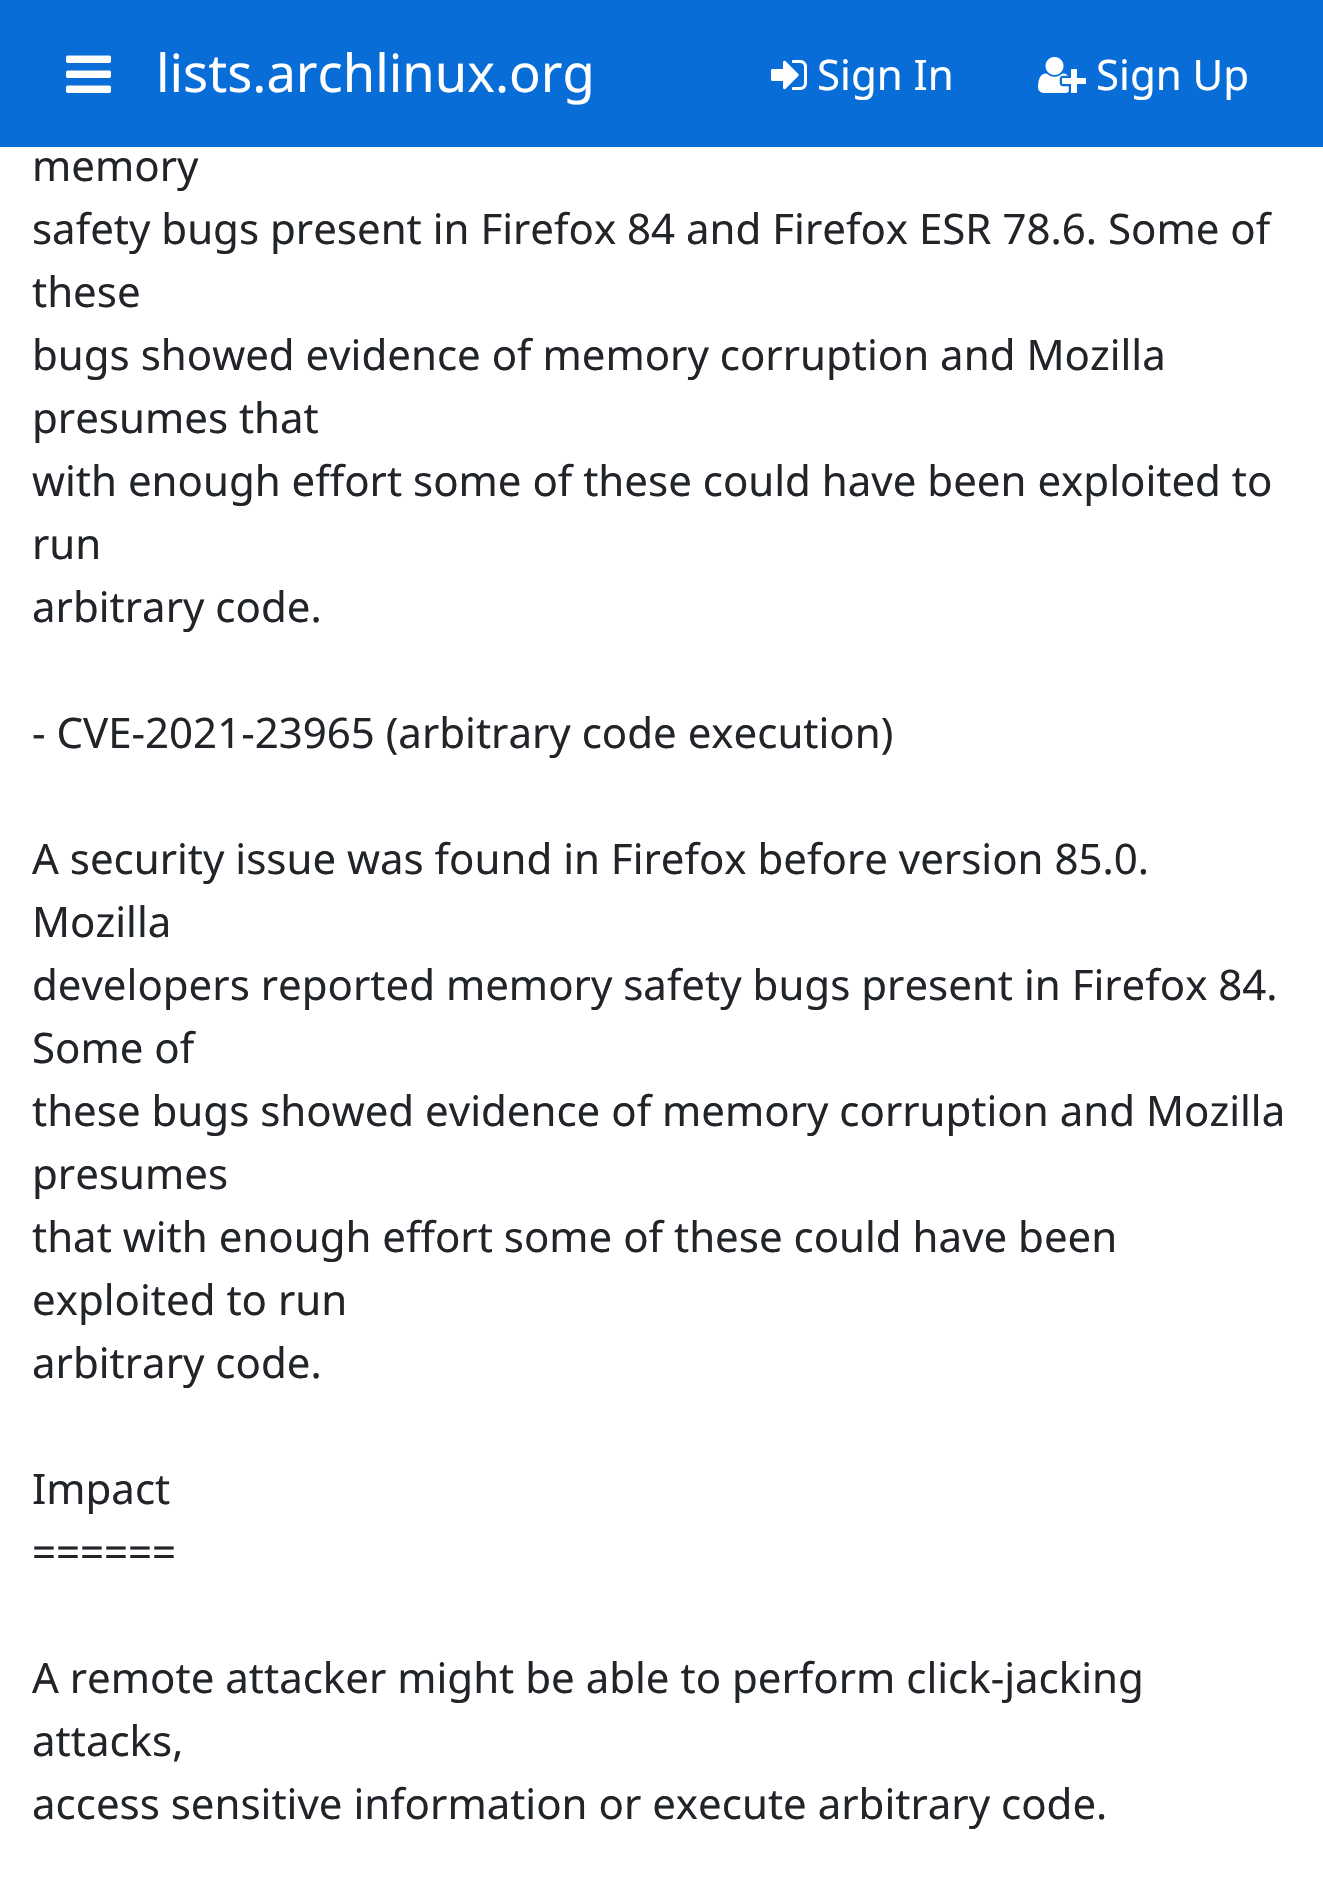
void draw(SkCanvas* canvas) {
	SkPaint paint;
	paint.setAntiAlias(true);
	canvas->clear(0xffffffff);
	paint.setColor(0xff086dd7);
	canvas->drawRect(SkRect::MakeXYWH(0, 0, 1323, 147), paint);
	canvas->drawImageRect(SkImages::DeferredFromEncodedData(SkData::MakeFromFileName("img1.png")), SkRect::MakeXYWH(66, 55, 45, 38), SkSamplingOptions());
	SkFont f1(fontMgr->matchFamilyStyle("Noto Sans", SkFontStyle::Normal()), 52.5);
	f1.setSubpixel(true);
	paint.setColor(0xffffffff);
	canvas->drawString("lists.archlinux.org", 156, 92, f1, paint);
	canvas->drawImageRect(SkImages::DeferredFromEncodedData(SkData::MakeFromFileName("img2.png")), SkRect::MakeXYWH(771, 60, 36, 30), SkSamplingOptions());
	SkFont f2(fontMgr->matchFamilyStyle("Noto Sans", SkFontStyle::Normal()), 42);
	f2.setSubpixel(true);
	canvas->drawString("Sign In", 817, 90, f2, paint);
	canvas->drawImageRect(SkImages::DeferredFromEncodedData(SkData::MakeFromFileName("img3.png")), SkRect::MakeXYWH(1038, 57, 48, 36), SkSamplingOptions());
	canvas->drawString("Sign Up", 1096, 90, f2, paint);
	paint.setColor(0xff212529);
	canvas->drawString("memory", 32, 181, f2, paint);
	canvas->drawString("safety bugs present in Firefox 84 and Firefox ESR 78.6. Some of", 32, 244, f2, paint);
	canvas->drawString("these", 32, 307, f2, paint);
	canvas->drawString("bugs showed evidence of memory corruption and Mozilla", 32, 370, f2, paint);
	canvas->drawString("presumes that", 32, 433, f2, paint);
	canvas->drawString("with enough effort some of these could have been exploited to", 32, 496, f2, paint);
	canvas->drawString("run", 32, 559, f2, paint);
	canvas->drawString("arbitrary code.", 32, 622, f2, paint);
	canvas->drawString("- CVE-2021-23965 (arbitrary code execution)", 32, 748, f2, paint);
	canvas->drawString("A security issue was found in Firefox before version 85.0.", 32, 874, f2, paint);
	canvas->drawString("Mozilla", 32, 937, f2, paint);
	canvas->drawString("developers reported memory safety bugs present in Firefox 84.", 32, 1000, f2, paint);
	canvas->drawString("Some of", 32, 1063, f2, paint);
	canvas->drawString("these bugs showed evidence of memory corruption and Mozilla", 32, 1126, f2, paint);
	canvas->drawString("presumes", 32, 1189, f2, paint);
	canvas->drawString("that with enough effort some of these could have been", 32, 1252, f2, paint);
	canvas->drawString("exploited to run", 32, 1315, f2, paint);
	canvas->drawString("arbitrary code.", 32, 1378, f2, paint);
	canvas->drawString("Impact", 32, 1504, f2, paint);
	canvas->drawString("======", 32, 1567, f2, paint);
	canvas->drawString("A remote attacker might be able to perform click-jacking", 32, 1693, f2, paint);
	canvas->drawString("attacks,", 32, 1756, f2, paint);
	canvas->drawString("access sensitive information or execute arbitrary code.", 32, 1819, f2, paint);
}
